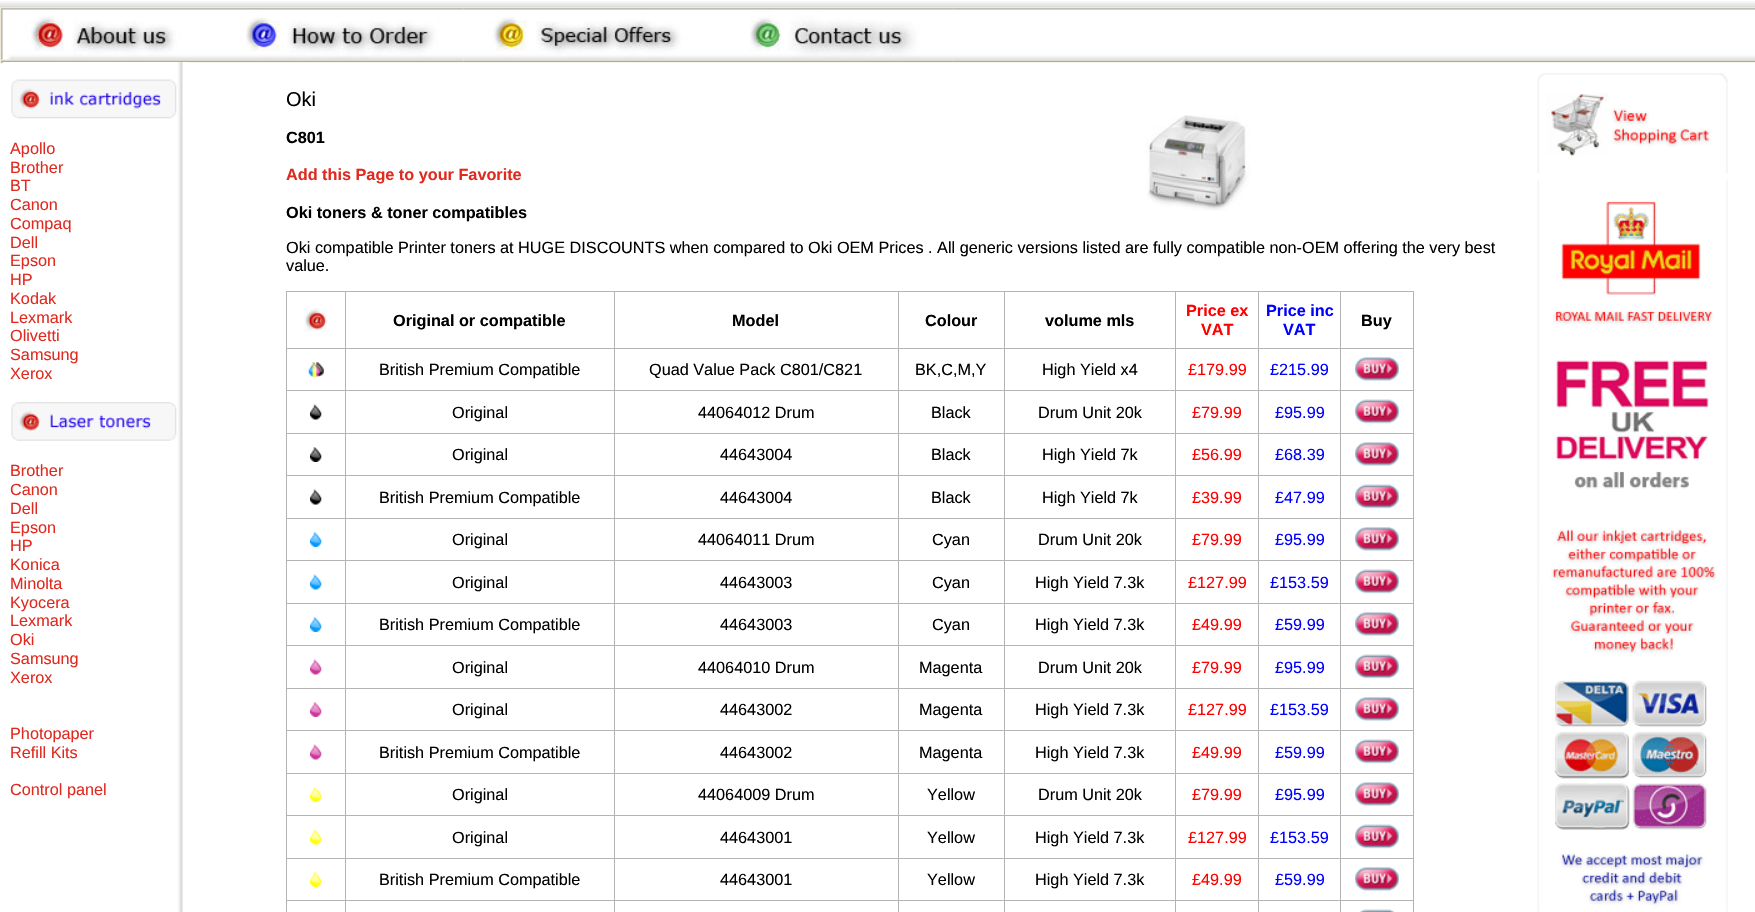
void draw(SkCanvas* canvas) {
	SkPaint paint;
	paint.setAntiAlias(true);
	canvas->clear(0xffffffff);
	canvas->drawImageRect(SkImages::DeferredFromEncodedData(SkData::MakeFromFileName("img1.png")), SkRect::MakeXYWH(0, 1, 1755, 6), SkSamplingOptions());
	canvas->drawImageRect(SkImages::DeferredFromEncodedData(SkData::MakeFromFileName("img2.png")), SkRect::MakeXYWH(0, 7, 230, 57), SkSamplingOptions());
	canvas->drawImageRect(SkImages::DeferredFromEncodedData(SkData::MakeFromFileName("img3.png")), SkRect::MakeXYWH(230, 7, 234, 56), SkSamplingOptions());
	canvas->drawImageRect(SkImages::DeferredFromEncodedData(SkData::MakeFromFileName("img4.png")), SkRect::MakeXYWH(463, 7, 252, 56), SkSamplingOptions());
	canvas->drawImageRect(SkImages::DeferredFromEncodedData(SkData::MakeFromFileName("img5.png")), SkRect::MakeXYWH(715, 7, 239, 56), SkSamplingOptions());
	canvas->drawImageRect(SkImages::DeferredFromEncodedData(SkData::MakeFromFileName("img6.png")), SkRect::MakeXYWH(953, 7, 802, 56), SkSamplingOptions());
	canvas->drawImageRect(SkImages::DeferredFromEncodedData(SkData::MakeFromFileName("img7.png")), SkRect::MakeXYWH(4, 62, 184, 850), SkSamplingOptions());
	canvas->drawImageRect(SkImages::DeferredFromEncodedData(SkData::MakeFromFileName("img8.png")), SkRect::MakeXYWH(11, 79, 166, 40), SkSamplingOptions());
	SkFont f1(fontMgr->matchFamilyStyle("Liberation Sans", SkFontStyle::Normal()), 16.25);
	f1.setSubpixel(true);
	paint.setColor(0xffe02a1f);
	canvas->drawString("Apollo", 10, 154, f1, paint);
	canvas->drawString("Brother", 10, 173, f1, paint);
	canvas->drawString("BT", 10, 191, f1, paint);
	canvas->drawString("Canon", 10, 210, f1, paint);
	canvas->drawString("Compaq", 10, 229, f1, paint);
	canvas->drawString("Dell", 10, 248, f1, paint);
	canvas->drawString("Epson", 10, 266, f1, paint);
	canvas->drawString("HP", 10, 285, f1, paint);
	canvas->drawString("Kodak", 10, 304, f1, paint);
	canvas->drawString("Lexmark", 10, 323, f1, paint);
	canvas->drawString("Olivetti", 10, 341, f1, paint);
	canvas->drawString("Samsung", 10, 360, f1, paint);
	canvas->drawString("Xerox", 10, 379, f1, paint);
	canvas->drawImageRect(SkImages::DeferredFromEncodedData(SkData::MakeFromFileName("img9.png")), SkRect::MakeXYWH(11, 402, 166, 39), SkSamplingOptions());
	canvas->drawString("Brother", 10, 476, f1, paint);
	canvas->drawString("Canon", 10, 495, f1, paint);
	canvas->drawString("Dell", 10, 514, f1, paint);
	canvas->drawString("Epson", 10, 533, f1, paint);
	canvas->drawString("HP", 10, 551, f1, paint);
	canvas->drawString("Konica", 10, 570, f1, paint);
	canvas->drawString("Minolta", 10, 589, f1, paint);
	canvas->drawString("Kyocera", 10, 608, f1, paint);
	canvas->drawString("Lexmark", 10, 626, f1, paint);
	canvas->drawString("Oki", 10, 645, f1, paint);
	canvas->drawString("Samsung", 10, 664, f1, paint);
	canvas->drawString("Xerox", 10, 683, f1, paint);
	canvas->drawString("Photopaper", 10, 739, f1, paint);
	canvas->drawString("Refill Kits", 10, 758, f1, paint);
	canvas->drawString("Control panel", 10, 795, f1, paint);
	SkFont f2(fontMgr->matchFamilyStyle("Liberation Sans", SkFontStyle::Normal()), 20);
	f2.setSubpixel(true);
	paint.setColor(0xff000000);
	canvas->drawString("Oki", 286, 106, f2, paint);
	SkFont f3(fontMgr->matchFamilyStyle("Liberation Sans", SkFontStyle::Bold()), 16.25);
	f3.setSubpixel(true);
	canvas->drawString("C801", 286, 143, f3, paint);
	paint.setColor(0xffe02a1f);
	canvas->drawString("Add this Page to your Favorite", 286, 180, f3, paint);
	paint.setColor(0xff000000);
	canvas->drawString("Oki toners & toner compatibles", 286, 218, f3, paint);
	canvas->drawString("Oki compatible Printer toners at HUGE DISCOUNTS when compared to Oki OEM Prices . All generic versions listed are fully compatible non-OEM offering the very best", 286, 253, f1, paint);
	canvas->drawString("value.", 286, 271, f1, paint);
	paint.setColor(0xffb4b4b4);
	canvas->drawRect(SkRect::MakeXYWH(286, 291, 1128, 1), paint);
	canvas->drawRect(SkRect::MakeXYWH(1413, 291, 1, 621), paint);
	canvas->drawRect(SkRect::MakeXYWH(286, 291, 1, 621), paint);
	canvas->drawImageRect(SkImages::DeferredFromEncodedData(SkData::MakeFromFileName("img10.png")), SkRect::MakeXYWH(304, 308, 24, 24), SkSamplingOptions());
	canvas->drawRect(SkRect::MakeXYWH(1340, 348, 74, 1), paint);
	canvas->drawRect(SkRect::MakeXYWH(1340, 390, 74, 1), paint);
	canvas->drawRect(SkRect::MakeXYWH(1340, 433, 74, 1), paint);
	canvas->drawRect(SkRect::MakeXYWH(1340, 475, 74, 1), paint);
	canvas->drawRect(SkRect::MakeXYWH(1340, 518, 74, 1), paint);
	canvas->drawRect(SkRect::MakeXYWH(1340, 560, 74, 1), paint);
	canvas->drawRect(SkRect::MakeXYWH(1340, 603, 74, 1), paint);
	canvas->drawRect(SkRect::MakeXYWH(1340, 645, 74, 1), paint);
	canvas->drawRect(SkRect::MakeXYWH(1340, 688, 74, 1), paint);
	canvas->drawRect(SkRect::MakeXYWH(1340, 730, 74, 1), paint);
	canvas->drawRect(SkRect::MakeXYWH(1340, 773, 74, 1), paint);
	canvas->drawRect(SkRect::MakeXYWH(1340, 815, 74, 1), paint);
	canvas->drawRect(SkRect::MakeXYWH(1340, 858, 74, 1), paint);
	canvas->drawRect(SkRect::MakeXYWH(1340, 900, 74, 1), paint);
	canvas->drawRect(SkRect::MakeXYWH(1340, 900, 1, 12), paint);
	canvas->drawRect(SkRect::MakeXYWH(1258, 900, 83, 1), paint);
	canvas->drawRect(SkRect::MakeXYWH(1340, 858, 1, 43), paint);
	canvas->drawRect(SkRect::MakeXYWH(1258, 858, 83, 1), paint);
	canvas->drawRect(SkRect::MakeXYWH(1340, 815, 1, 44), paint);
	canvas->drawRect(SkRect::MakeXYWH(1258, 815, 83, 1), paint);
	canvas->drawRect(SkRect::MakeXYWH(1340, 773, 1, 43), paint);
	canvas->drawRect(SkRect::MakeXYWH(1258, 773, 83, 1), paint);
	canvas->drawRect(SkRect::MakeXYWH(1340, 730, 1, 44), paint);
	canvas->drawRect(SkRect::MakeXYWH(1258, 730, 83, 1), paint);
	canvas->drawRect(SkRect::MakeXYWH(1340, 688, 1, 43), paint);
	canvas->drawRect(SkRect::MakeXYWH(1258, 688, 83, 1), paint);
	canvas->drawRect(SkRect::MakeXYWH(1340, 645, 1, 44), paint);
	canvas->drawRect(SkRect::MakeXYWH(1258, 645, 83, 1), paint);
	canvas->drawRect(SkRect::MakeXYWH(1340, 603, 1, 43), paint);
	canvas->drawRect(SkRect::MakeXYWH(1258, 603, 83, 1), paint);
	canvas->drawRect(SkRect::MakeXYWH(1340, 560, 1, 44), paint);
	canvas->drawRect(SkRect::MakeXYWH(1258, 560, 83, 1), paint);
	canvas->drawRect(SkRect::MakeXYWH(1340, 518, 1, 43), paint);
	canvas->drawRect(SkRect::MakeXYWH(1258, 518, 83, 1), paint);
	canvas->drawRect(SkRect::MakeXYWH(1340, 475, 1, 44), paint);
	canvas->drawRect(SkRect::MakeXYWH(1258, 475, 83, 1), paint);
	canvas->drawRect(SkRect::MakeXYWH(1340, 433, 1, 43), paint);
	canvas->drawRect(SkRect::MakeXYWH(1258, 433, 83, 1), paint);
	canvas->drawRect(SkRect::MakeXYWH(1340, 390, 1, 44), paint);
	canvas->drawRect(SkRect::MakeXYWH(1258, 390, 83, 1), paint);
	canvas->drawRect(SkRect::MakeXYWH(1340, 348, 1, 43), paint);
	canvas->drawRect(SkRect::MakeXYWH(1258, 348, 83, 1), paint);
	canvas->drawRect(SkRect::MakeXYWH(1258, 900, 1, 12), paint);
	canvas->drawRect(SkRect::MakeXYWH(1175, 900, 84, 1), paint);
	canvas->drawRect(SkRect::MakeXYWH(1258, 858, 1, 43), paint);
	canvas->drawRect(SkRect::MakeXYWH(1175, 858, 84, 1), paint);
	canvas->drawRect(SkRect::MakeXYWH(1258, 815, 1, 44), paint);
	canvas->drawRect(SkRect::MakeXYWH(1175, 815, 84, 1), paint);
	canvas->drawRect(SkRect::MakeXYWH(1258, 773, 1, 43), paint);
	canvas->drawRect(SkRect::MakeXYWH(1175, 773, 84, 1), paint);
	canvas->drawRect(SkRect::MakeXYWH(1258, 730, 1, 44), paint);
	canvas->drawRect(SkRect::MakeXYWH(1175, 730, 84, 1), paint);
	canvas->drawRect(SkRect::MakeXYWH(1258, 688, 1, 43), paint);
	canvas->drawRect(SkRect::MakeXYWH(1175, 688, 84, 1), paint);
	canvas->drawRect(SkRect::MakeXYWH(1258, 645, 1, 44), paint);
	canvas->drawRect(SkRect::MakeXYWH(1175, 645, 84, 1), paint);
	canvas->drawRect(SkRect::MakeXYWH(1258, 603, 1, 43), paint);
	canvas->drawRect(SkRect::MakeXYWH(1175, 603, 84, 1), paint);
	canvas->drawRect(SkRect::MakeXYWH(1258, 560, 1, 44), paint);
	canvas->drawRect(SkRect::MakeXYWH(1175, 560, 84, 1), paint);
	canvas->drawRect(SkRect::MakeXYWH(1258, 518, 1, 43), paint);
	canvas->drawRect(SkRect::MakeXYWH(1175, 518, 84, 1), paint);
	canvas->drawRect(SkRect::MakeXYWH(1258, 475, 1, 44), paint);
	canvas->drawRect(SkRect::MakeXYWH(1175, 475, 84, 1), paint);
	canvas->drawRect(SkRect::MakeXYWH(1258, 433, 1, 43), paint);
	canvas->drawRect(SkRect::MakeXYWH(1175, 433, 84, 1), paint);
	canvas->drawRect(SkRect::MakeXYWH(1258, 390, 1, 44), paint);
	canvas->drawRect(SkRect::MakeXYWH(1175, 390, 84, 1), paint);
	canvas->drawRect(SkRect::MakeXYWH(1258, 348, 1, 43), paint);
	canvas->drawRect(SkRect::MakeXYWH(1175, 348, 84, 1), paint);
	canvas->drawRect(SkRect::MakeXYWH(1175, 900, 1, 12), paint);
	canvas->drawRect(SkRect::MakeXYWH(1004, 900, 172, 1), paint);
	canvas->drawRect(SkRect::MakeXYWH(1175, 858, 1, 43), paint);
	canvas->drawRect(SkRect::MakeXYWH(1004, 858, 172, 1), paint);
	canvas->drawRect(SkRect::MakeXYWH(1175, 815, 1, 44), paint);
	canvas->drawRect(SkRect::MakeXYWH(1004, 815, 172, 1), paint);
	canvas->drawRect(SkRect::MakeXYWH(1175, 773, 1, 43), paint);
	canvas->drawRect(SkRect::MakeXYWH(1004, 773, 172, 1), paint);
	canvas->drawRect(SkRect::MakeXYWH(1175, 730, 1, 44), paint);
	canvas->drawRect(SkRect::MakeXYWH(1004, 730, 172, 1), paint);
	canvas->drawRect(SkRect::MakeXYWH(1175, 688, 1, 43), paint);
	canvas->drawRect(SkRect::MakeXYWH(1004, 688, 172, 1), paint);
	canvas->drawRect(SkRect::MakeXYWH(1175, 645, 1, 44), paint);
	canvas->drawRect(SkRect::MakeXYWH(1004, 645, 172, 1), paint);
	canvas->drawRect(SkRect::MakeXYWH(1175, 603, 1, 43), paint);
	canvas->drawRect(SkRect::MakeXYWH(1004, 603, 172, 1), paint);
	canvas->drawRect(SkRect::MakeXYWH(1175, 560, 1, 44), paint);
	canvas->drawRect(SkRect::MakeXYWH(1004, 560, 172, 1), paint);
	canvas->drawRect(SkRect::MakeXYWH(1175, 518, 1, 43), paint);
	canvas->drawRect(SkRect::MakeXYWH(1004, 518, 172, 1), paint);
	canvas->drawRect(SkRect::MakeXYWH(1175, 475, 1, 44), paint);
	canvas->drawRect(SkRect::MakeXYWH(1004, 475, 172, 1), paint);
	canvas->drawRect(SkRect::MakeXYWH(1175, 433, 1, 43), paint);
	canvas->drawRect(SkRect::MakeXYWH(1004, 433, 172, 1), paint);
	canvas->drawRect(SkRect::MakeXYWH(1175, 390, 1, 44), paint);
	canvas->drawRect(SkRect::MakeXYWH(1004, 390, 172, 1), paint);
	canvas->drawRect(SkRect::MakeXYWH(1175, 348, 1, 43), paint);
	canvas->drawRect(SkRect::MakeXYWH(1004, 348, 172, 1), paint);
	canvas->drawRect(SkRect::MakeXYWH(1004, 900, 1, 12), paint);
	canvas->drawRect(SkRect::MakeXYWH(898, 900, 107, 1), paint);
	canvas->drawRect(SkRect::MakeXYWH(1004, 858, 1, 43), paint);
	canvas->drawRect(SkRect::MakeXYWH(898, 858, 107, 1), paint);
	canvas->drawRect(SkRect::MakeXYWH(1004, 815, 1, 44), paint);
	canvas->drawRect(SkRect::MakeXYWH(898, 815, 107, 1), paint);
	canvas->drawRect(SkRect::MakeXYWH(1004, 773, 1, 43), paint);
	canvas->drawRect(SkRect::MakeXYWH(898, 773, 107, 1), paint);
	canvas->drawRect(SkRect::MakeXYWH(1004, 730, 1, 44), paint);
	canvas->drawRect(SkRect::MakeXYWH(898, 730, 107, 1), paint);
	canvas->drawRect(SkRect::MakeXYWH(1004, 688, 1, 43), paint);
	canvas->drawRect(SkRect::MakeXYWH(898, 688, 107, 1), paint);
	canvas->drawRect(SkRect::MakeXYWH(1004, 645, 1, 44), paint);
	canvas->drawRect(SkRect::MakeXYWH(898, 645, 107, 1), paint);
	canvas->drawRect(SkRect::MakeXYWH(1004, 603, 1, 43), paint);
	canvas->drawRect(SkRect::MakeXYWH(898, 603, 107, 1), paint);
	canvas->drawRect(SkRect::MakeXYWH(1004, 560, 1, 44), paint);
	canvas->drawRect(SkRect::MakeXYWH(898, 560, 107, 1), paint);
	canvas->drawRect(SkRect::MakeXYWH(1004, 518, 1, 43), paint);
	canvas->drawRect(SkRect::MakeXYWH(898, 518, 107, 1), paint);
	canvas->drawRect(SkRect::MakeXYWH(1004, 475, 1, 44), paint);
	canvas->drawRect(SkRect::MakeXYWH(898, 475, 107, 1), paint);
	canvas->drawRect(SkRect::MakeXYWH(1004, 433, 1, 43), paint);
	canvas->drawRect(SkRect::MakeXYWH(898, 433, 107, 1), paint);
	canvas->drawRect(SkRect::MakeXYWH(1004, 390, 1, 44), paint);
	canvas->drawRect(SkRect::MakeXYWH(898, 390, 107, 1), paint);
	canvas->drawRect(SkRect::MakeXYWH(1004, 348, 1, 43), paint);
	canvas->drawRect(SkRect::MakeXYWH(898, 348, 107, 1), paint);
	canvas->drawRect(SkRect::MakeXYWH(898, 900, 1, 12), paint);
	canvas->drawRect(SkRect::MakeXYWH(614, 900, 285, 1), paint);
	canvas->drawRect(SkRect::MakeXYWH(898, 858, 1, 43), paint);
	canvas->drawRect(SkRect::MakeXYWH(614, 858, 285, 1), paint);
	canvas->drawRect(SkRect::MakeXYWH(898, 815, 1, 44), paint);
	canvas->drawRect(SkRect::MakeXYWH(614, 815, 285, 1), paint);
	canvas->drawRect(SkRect::MakeXYWH(898, 773, 1, 43), paint);
	canvas->drawRect(SkRect::MakeXYWH(614, 773, 285, 1), paint);
	canvas->drawRect(SkRect::MakeXYWH(898, 730, 1, 44), paint);
	canvas->drawRect(SkRect::MakeXYWH(614, 730, 285, 1), paint);
	canvas->drawRect(SkRect::MakeXYWH(898, 688, 1, 43), paint);
	canvas->drawRect(SkRect::MakeXYWH(614, 688, 285, 1), paint);
	canvas->drawRect(SkRect::MakeXYWH(898, 645, 1, 44), paint);
	canvas->drawRect(SkRect::MakeXYWH(614, 645, 285, 1), paint);
	canvas->drawRect(SkRect::MakeXYWH(898, 603, 1, 43), paint);
	canvas->drawRect(SkRect::MakeXYWH(614, 603, 285, 1), paint);
	canvas->drawRect(SkRect::MakeXYWH(898, 560, 1, 44), paint);
	canvas->drawRect(SkRect::MakeXYWH(614, 560, 285, 1), paint);
	canvas->drawRect(SkRect::MakeXYWH(898, 518, 1, 43), paint);
	canvas->drawRect(SkRect::MakeXYWH(614, 518, 285, 1), paint);
	canvas->drawRect(SkRect::MakeXYWH(898, 475, 1, 44), paint);
	canvas->drawRect(SkRect::MakeXYWH(614, 475, 285, 1), paint);
	canvas->drawRect(SkRect::MakeXYWH(898, 433, 1, 43), paint);
	canvas->drawRect(SkRect::MakeXYWH(614, 433, 285, 1), paint);
	canvas->drawRect(SkRect::MakeXYWH(898, 390, 1, 44), paint);
	canvas->drawRect(SkRect::MakeXYWH(614, 390, 285, 1), paint);
	canvas->drawRect(SkRect::MakeXYWH(898, 348, 1, 43), paint);
	canvas->drawRect(SkRect::MakeXYWH(614, 348, 285, 1), paint);
	canvas->drawRect(SkRect::MakeXYWH(614, 900, 1, 12), paint);
	canvas->drawRect(SkRect::MakeXYWH(345, 900, 270, 1), paint);
	canvas->drawRect(SkRect::MakeXYWH(614, 858, 1, 43), paint);
	canvas->drawRect(SkRect::MakeXYWH(345, 858, 270, 1), paint);
	canvas->drawRect(SkRect::MakeXYWH(614, 815, 1, 44), paint);
	canvas->drawRect(SkRect::MakeXYWH(345, 815, 270, 1), paint);
	canvas->drawRect(SkRect::MakeXYWH(614, 773, 1, 43), paint);
	canvas->drawRect(SkRect::MakeXYWH(345, 773, 270, 1), paint);
	canvas->drawRect(SkRect::MakeXYWH(614, 730, 1, 44), paint);
	canvas->drawRect(SkRect::MakeXYWH(345, 730, 270, 1), paint);
	canvas->drawRect(SkRect::MakeXYWH(614, 688, 1, 43), paint);
	canvas->drawRect(SkRect::MakeXYWH(345, 688, 270, 1), paint);
	canvas->drawRect(SkRect::MakeXYWH(614, 645, 1, 44), paint);
	canvas->drawRect(SkRect::MakeXYWH(345, 645, 270, 1), paint);
	canvas->drawRect(SkRect::MakeXYWH(614, 603, 1, 43), paint);
	canvas->drawRect(SkRect::MakeXYWH(345, 603, 270, 1), paint);
	canvas->drawRect(SkRect::MakeXYWH(614, 560, 1, 44), paint);
	canvas->drawRect(SkRect::MakeXYWH(345, 560, 270, 1), paint);
	canvas->drawRect(SkRect::MakeXYWH(614, 518, 1, 43), paint);
	canvas->drawRect(SkRect::MakeXYWH(345, 518, 270, 1), paint);
	canvas->drawRect(SkRect::MakeXYWH(614, 475, 1, 44), paint);
	canvas->drawRect(SkRect::MakeXYWH(345, 475, 270, 1), paint);
	canvas->drawRect(SkRect::MakeXYWH(614, 433, 1, 43), paint);
	canvas->drawRect(SkRect::MakeXYWH(345, 433, 270, 1), paint);
	canvas->drawRect(SkRect::MakeXYWH(614, 390, 1, 44), paint);
	canvas->drawRect(SkRect::MakeXYWH(345, 390, 270, 1), paint);
	canvas->drawRect(SkRect::MakeXYWH(614, 348, 1, 43), paint);
	canvas->drawRect(SkRect::MakeXYWH(345, 348, 270, 1), paint);
	canvas->drawRect(SkRect::MakeXYWH(345, 900, 1, 12), paint);
	canvas->drawRect(SkRect::MakeXYWH(286, 900, 60, 1), paint);
	canvas->drawRect(SkRect::MakeXYWH(345, 858, 1, 43), paint);
	canvas->drawRect(SkRect::MakeXYWH(286, 858, 60, 1), paint);
	canvas->drawRect(SkRect::MakeXYWH(345, 815, 1, 44), paint);
	canvas->drawRect(SkRect::MakeXYWH(286, 815, 60, 1), paint);
	canvas->drawRect(SkRect::MakeXYWH(345, 773, 1, 43), paint);
	canvas->drawRect(SkRect::MakeXYWH(286, 773, 60, 1), paint);
	canvas->drawRect(SkRect::MakeXYWH(345, 730, 1, 44), paint);
	canvas->drawRect(SkRect::MakeXYWH(286, 730, 60, 1), paint);
	canvas->drawRect(SkRect::MakeXYWH(345, 688, 1, 43), paint);
	canvas->drawRect(SkRect::MakeXYWH(286, 688, 60, 1), paint);
	canvas->drawRect(SkRect::MakeXYWH(345, 645, 1, 44), paint);
	canvas->drawRect(SkRect::MakeXYWH(286, 645, 60, 1), paint);
	canvas->drawRect(SkRect::MakeXYWH(345, 603, 1, 43), paint);
	canvas->drawRect(SkRect::MakeXYWH(286, 603, 60, 1), paint);
	canvas->drawRect(SkRect::MakeXYWH(345, 560, 1, 44), paint);
	canvas->drawRect(SkRect::MakeXYWH(286, 560, 60, 1), paint);
	canvas->drawRect(SkRect::MakeXYWH(345, 518, 1, 43), paint);
	canvas->drawRect(SkRect::MakeXYWH(286, 518, 60, 1), paint);
	canvas->drawRect(SkRect::MakeXYWH(345, 475, 1, 44), paint);
	canvas->drawRect(SkRect::MakeXYWH(286, 475, 60, 1), paint);
	canvas->drawRect(SkRect::MakeXYWH(345, 433, 1, 43), paint);
	canvas->drawRect(SkRect::MakeXYWH(286, 433, 60, 1), paint);
	canvas->drawRect(SkRect::MakeXYWH(345, 390, 1, 44), paint);
	canvas->drawRect(SkRect::MakeXYWH(286, 390, 60, 1), paint);
	canvas->drawRect(SkRect::MakeXYWH(345, 348, 1, 43), paint);
	canvas->drawRect(SkRect::MakeXYWH(286, 348, 60, 1), paint);
	canvas->drawRect(SkRect::MakeXYWH(345, 291, 1, 58), paint);
	paint.setColor(0xff000000);
	canvas->drawString("Original or compatible", 393, 326, f3, paint);
	paint.setColor(0xffb4b4b4);
	canvas->drawRect(SkRect::MakeXYWH(614, 291, 1, 58), paint);
	paint.setColor(0xff000000);
	canvas->drawString("Model", 732, 326, f3, paint);
	paint.setColor(0xffb4b4b4);
	canvas->drawRect(SkRect::MakeXYWH(898, 291, 1, 58), paint);
	paint.setColor(0xff000000);
	canvas->drawString("Colour", 925, 326, f3, paint);
	paint.setColor(0xffb4b4b4);
	canvas->drawRect(SkRect::MakeXYWH(1004, 291, 1, 58), paint);
	paint.setColor(0xff000000);
	canvas->drawString("volume mls", 1045, 326, f3, paint);
	paint.setColor(0xffb4b4b4);
	canvas->drawRect(SkRect::MakeXYWH(1175, 291, 1, 58), paint);
	paint.setColor(0xffff0000);
	canvas->drawString("Price ex", 1186, 316, f3, paint);
	canvas->drawString("VAT", 1201, 335, f3, paint);
	paint.setColor(0xffb4b4b4);
	canvas->drawRect(SkRect::MakeXYWH(1258, 291, 1, 58), paint);
	paint.setColor(0xff0000ff);
	canvas->drawString("Price inc", 1266, 316, f3, paint);
	canvas->drawString("VAT", 1283, 335, f3, paint);
	paint.setColor(0xffb4b4b4);
	canvas->drawRect(SkRect::MakeXYWH(1340, 291, 1, 58), paint);
	paint.setColor(0xff000000);
	canvas->drawString("Buy", 1361, 326, f3, paint);
	canvas->drawImageRect(SkImages::DeferredFromEncodedData(SkData::MakeFromFileName("img11.png")), SkRect::MakeXYWH(308, 362, 16, 15), SkSamplingOptions());
	canvas->drawString("British Premium Compatible", 379, 375, f1, paint);
	canvas->drawString("Quad Value Pack C801/C821", 649, 375, f1, paint);
	canvas->drawString("BK,C,M,Y", 915, 375, f1, paint);
	canvas->drawString("High Yield x4", 1042, 375, f1, paint);
	paint.setColor(0xffff0000);
	canvas->drawString("£179.99", 1188, 375, f1, paint);
	paint.setColor(0xff0000ff);
	canvas->drawString("£215.99", 1270, 375, f1, paint);
	canvas->drawImageRect(SkImages::DeferredFromEncodedData(SkData::MakeFromFileName("img12.png")), SkRect::MakeXYWH(1355, 357, 44, 24), SkSamplingOptions());
	canvas->drawImageRect(SkImages::DeferredFromEncodedData(SkData::MakeFromFileName("img13.png")), SkRect::MakeXYWH(310, 404, 12, 16), SkSamplingOptions());
	paint.setColor(0xff000000);
	canvas->drawString("Original", 452, 418, f1, paint);
	canvas->drawString("44064012 Drum", 698, 418, f1, paint);
	canvas->drawString("Black", 931, 418, f1, paint);
	canvas->drawString("Drum Unit 20k", 1038, 418, f1, paint);
	paint.setColor(0xffff0000);
	canvas->drawString("£79.99", 1192, 418, f1, paint);
	paint.setColor(0xff0000ff);
	canvas->drawString("£95.99", 1275, 418, f1, paint);
	canvas->drawImageRect(SkImages::DeferredFromEncodedData(SkData::MakeFromFileName("img14.png")), SkRect::MakeXYWH(1355, 399, 44, 25), SkSamplingOptions());
	canvas->drawImageRect(SkImages::DeferredFromEncodedData(SkData::MakeFromFileName("img15.png")), SkRect::MakeXYWH(310, 447, 12, 15), SkSamplingOptions());
	paint.setColor(0xff000000);
	canvas->drawString("Original", 452, 460, f1, paint);
	canvas->drawString("44643004", 720, 460, f1, paint);
	canvas->drawString("Black", 931, 460, f1, paint);
	canvas->drawString("High Yield 7k", 1042, 460, f1, paint);
	paint.setColor(0xffff0000);
	canvas->drawString("£56.99", 1192, 460, f1, paint);
	paint.setColor(0xff0000ff);
	canvas->drawString("£68.39", 1275, 460, f1, paint);
	canvas->drawImageRect(SkImages::DeferredFromEncodedData(SkData::MakeFromFileName("img12.png")), SkRect::MakeXYWH(1355, 442, 44, 24), SkSamplingOptions());
	canvas->drawImageRect(SkImages::DeferredFromEncodedData(SkData::MakeFromFileName("img16.png")), SkRect::MakeXYWH(310, 489, 12, 16), SkSamplingOptions());
	paint.setColor(0xff000000);
	canvas->drawString("British Premium Compatible", 379, 503, f1, paint);
	canvas->drawString("44643004", 720, 503, f1, paint);
	canvas->drawString("Black", 931, 503, f1, paint);
	canvas->drawString("High Yield 7k", 1042, 503, f1, paint);
	paint.setColor(0xffff0000);
	canvas->drawString("£39.99", 1192, 503, f1, paint);
	paint.setColor(0xff0000ff);
	canvas->drawString("£47.99", 1275, 503, f1, paint);
	canvas->drawImageRect(SkImages::DeferredFromEncodedData(SkData::MakeFromFileName("img14.png")), SkRect::MakeXYWH(1355, 484, 44, 25), SkSamplingOptions());
	canvas->drawImageRect(SkImages::DeferredFromEncodedData(SkData::MakeFromFileName("img17.png")), SkRect::MakeXYWH(310, 532, 12, 15), SkSamplingOptions());
	paint.setColor(0xff000000);
	canvas->drawString("Original", 452, 545, f1, paint);
	canvas->drawString("44064011 Drum", 698, 545, f1, paint);
	canvas->drawString("Cyan", 932, 545, f1, paint);
	canvas->drawString("Drum Unit 20k", 1038, 545, f1, paint);
	paint.setColor(0xffff0000);
	canvas->drawString("£79.99", 1192, 545, f1, paint);
	paint.setColor(0xff0000ff);
	canvas->drawString("£95.99", 1275, 545, f1, paint);
	canvas->drawImageRect(SkImages::DeferredFromEncodedData(SkData::MakeFromFileName("img12.png")), SkRect::MakeXYWH(1355, 527, 44, 24), SkSamplingOptions());
	canvas->drawImageRect(SkImages::DeferredFromEncodedData(SkData::MakeFromFileName("img18.png")), SkRect::MakeXYWH(310, 574, 12, 16), SkSamplingOptions());
	paint.setColor(0xff000000);
	canvas->drawString("Original", 452, 588, f1, paint);
	canvas->drawString("44643003", 720, 588, f1, paint);
	canvas->drawString("Cyan", 932, 588, f1, paint);
	canvas->drawString("High Yield 7.3k", 1035, 588, f1, paint);
	paint.setColor(0xffff0000);
	canvas->drawString("£127.99", 1188, 588, f1, paint);
	paint.setColor(0xff0000ff);
	canvas->drawString("£153.59", 1270, 588, f1, paint);
	canvas->drawImageRect(SkImages::DeferredFromEncodedData(SkData::MakeFromFileName("img14.png")), SkRect::MakeXYWH(1355, 569, 44, 25), SkSamplingOptions());
	canvas->drawImageRect(SkImages::DeferredFromEncodedData(SkData::MakeFromFileName("img17.png")), SkRect::MakeXYWH(310, 617, 12, 15), SkSamplingOptions());
	paint.setColor(0xff000000);
	canvas->drawString("British Premium Compatible", 379, 630, f1, paint);
	canvas->drawString("44643003", 720, 630, f1, paint);
	canvas->drawString("Cyan", 932, 630, f1, paint);
	canvas->drawString("High Yield 7.3k", 1035, 630, f1, paint);
	paint.setColor(0xffff0000);
	canvas->drawString("£49.99", 1192, 630, f1, paint);
	paint.setColor(0xff0000ff);
	canvas->drawString("£59.99", 1275, 630, f1, paint);
	canvas->drawImageRect(SkImages::DeferredFromEncodedData(SkData::MakeFromFileName("img12.png")), SkRect::MakeXYWH(1355, 612, 44, 24), SkSamplingOptions());
	canvas->drawImageRect(SkImages::DeferredFromEncodedData(SkData::MakeFromFileName("img19.png")), SkRect::MakeXYWH(310, 659, 12, 16), SkSamplingOptions());
	paint.setColor(0xff000000);
	canvas->drawString("Original", 452, 673, f1, paint);
	canvas->drawString("44064010 Drum", 698, 673, f1, paint);
	canvas->drawString("Magenta", 919, 673, f1, paint);
	canvas->drawString("Drum Unit 20k", 1038, 673, f1, paint);
	paint.setColor(0xffff0000);
	canvas->drawString("£79.99", 1192, 673, f1, paint);
	paint.setColor(0xff0000ff);
	canvas->drawString("£95.99", 1275, 673, f1, paint);
	canvas->drawImageRect(SkImages::DeferredFromEncodedData(SkData::MakeFromFileName("img14.png")), SkRect::MakeXYWH(1355, 654, 44, 25), SkSamplingOptions());
	canvas->drawImageRect(SkImages::DeferredFromEncodedData(SkData::MakeFromFileName("img20.png")), SkRect::MakeXYWH(310, 702, 12, 15), SkSamplingOptions());
	paint.setColor(0xff000000);
	canvas->drawString("Original", 452, 715, f1, paint);
	canvas->drawString("44643002", 720, 715, f1, paint);
	canvas->drawString("Magenta", 919, 715, f1, paint);
	canvas->drawString("High Yield 7.3k", 1035, 715, f1, paint);
	paint.setColor(0xffff0000);
	canvas->drawString("£127.99", 1188, 715, f1, paint);
	paint.setColor(0xff0000ff);
	canvas->drawString("£153.59", 1270, 715, f1, paint);
	canvas->drawImageRect(SkImages::DeferredFromEncodedData(SkData::MakeFromFileName("img12.png")), SkRect::MakeXYWH(1355, 697, 44, 24), SkSamplingOptions());
	canvas->drawImageRect(SkImages::DeferredFromEncodedData(SkData::MakeFromFileName("img19.png")), SkRect::MakeXYWH(310, 744, 12, 16), SkSamplingOptions());
	paint.setColor(0xff000000);
	canvas->drawString("British Premium Compatible", 379, 758, f1, paint);
	canvas->drawString("44643002", 720, 758, f1, paint);
	canvas->drawString("Magenta", 919, 758, f1, paint);
	canvas->drawString("High Yield 7.3k", 1035, 758, f1, paint);
	paint.setColor(0xffff0000);
	canvas->drawString("£49.99", 1192, 758, f1, paint);
	paint.setColor(0xff0000ff);
	canvas->drawString("£59.99", 1275, 758, f1, paint);
	canvas->drawImageRect(SkImages::DeferredFromEncodedData(SkData::MakeFromFileName("img14.png")), SkRect::MakeXYWH(1355, 739, 44, 25), SkSamplingOptions());
	canvas->drawImageRect(SkImages::DeferredFromEncodedData(SkData::MakeFromFileName("img21.png")), SkRect::MakeXYWH(310, 787, 12, 15), SkSamplingOptions());
	paint.setColor(0xff000000);
	canvas->drawString("Original", 452, 800, f1, paint);
	canvas->drawString("44064009 Drum", 698, 800, f1, paint);
	canvas->drawString("Yellow", 927, 800, f1, paint);
	canvas->drawString("Drum Unit 20k", 1038, 800, f1, paint);
	paint.setColor(0xffff0000);
	canvas->drawString("£79.99", 1192, 800, f1, paint);
	paint.setColor(0xff0000ff);
	canvas->drawString("£95.99", 1275, 800, f1, paint);
	canvas->drawImageRect(SkImages::DeferredFromEncodedData(SkData::MakeFromFileName("img12.png")), SkRect::MakeXYWH(1355, 782, 44, 24), SkSamplingOptions());
	canvas->drawImageRect(SkImages::DeferredFromEncodedData(SkData::MakeFromFileName("img22.png")), SkRect::MakeXYWH(310, 829, 12, 16), SkSamplingOptions());
	paint.setColor(0xff000000);
	canvas->drawString("Original", 452, 843, f1, paint);
	canvas->drawString("44643001", 720, 843, f1, paint);
	canvas->drawString("Yellow", 927, 843, f1, paint);
	canvas->drawString("High Yield 7.3k", 1035, 843, f1, paint);
	paint.setColor(0xffff0000);
	canvas->drawString("£127.99", 1188, 843, f1, paint);
	paint.setColor(0xff0000ff);
	canvas->drawString("£153.59", 1270, 843, f1, paint);
	canvas->drawImageRect(SkImages::DeferredFromEncodedData(SkData::MakeFromFileName("img14.png")), SkRect::MakeXYWH(1355, 824, 44, 25), SkSamplingOptions());
	canvas->drawImageRect(SkImages::DeferredFromEncodedData(SkData::MakeFromFileName("img21.png")), SkRect::MakeXYWH(310, 872, 12, 15), SkSamplingOptions());
	paint.setColor(0xff000000);
	canvas->drawString("British Premium Compatible", 379, 885, f1, paint);
	canvas->drawString("44643001", 720, 885, f1, paint);
	canvas->drawString("Yellow", 927, 885, f1, paint);
	canvas->drawString("High Yield 7.3k", 1035, 885, f1, paint);
	paint.setColor(0xffff0000);
	canvas->drawString("£49.99", 1192, 885, f1, paint);
	paint.setColor(0xff0000ff);
	canvas->drawString("£59.99", 1275, 885, f1, paint);
	canvas->drawImageRect(SkImages::DeferredFromEncodedData(SkData::MakeFromFileName("img12.png")), SkRect::MakeXYWH(1355, 867, 44, 24), SkSamplingOptions());
	canvas->drawImageRect(SkImages::DeferredFromEncodedData(SkData::MakeFromFileName("img23.png")), SkRect::MakeXYWH(1359, 909, 36, 3), SkSamplingOptions());
	canvas->drawImageRect(SkImages::DeferredFromEncodedData(SkData::MakeFromFileName("img24.png")), SkRect::MakeXYWH(1537, 73, 191, 100), SkSamplingOptions());
	canvas->drawImageRect(SkImages::DeferredFromEncodedData(SkData::MakeFromFileName("img25.png")), SkRect::MakeXYWH(1537, 179, 191, 733), SkSamplingOptions());
	canvas->drawImageRect(SkImages::DeferredFromEncodedData(SkData::MakeFromFileName("img26.png")), SkRect::MakeXYWH(1145, 115, 106, 96), SkSamplingOptions());
}
